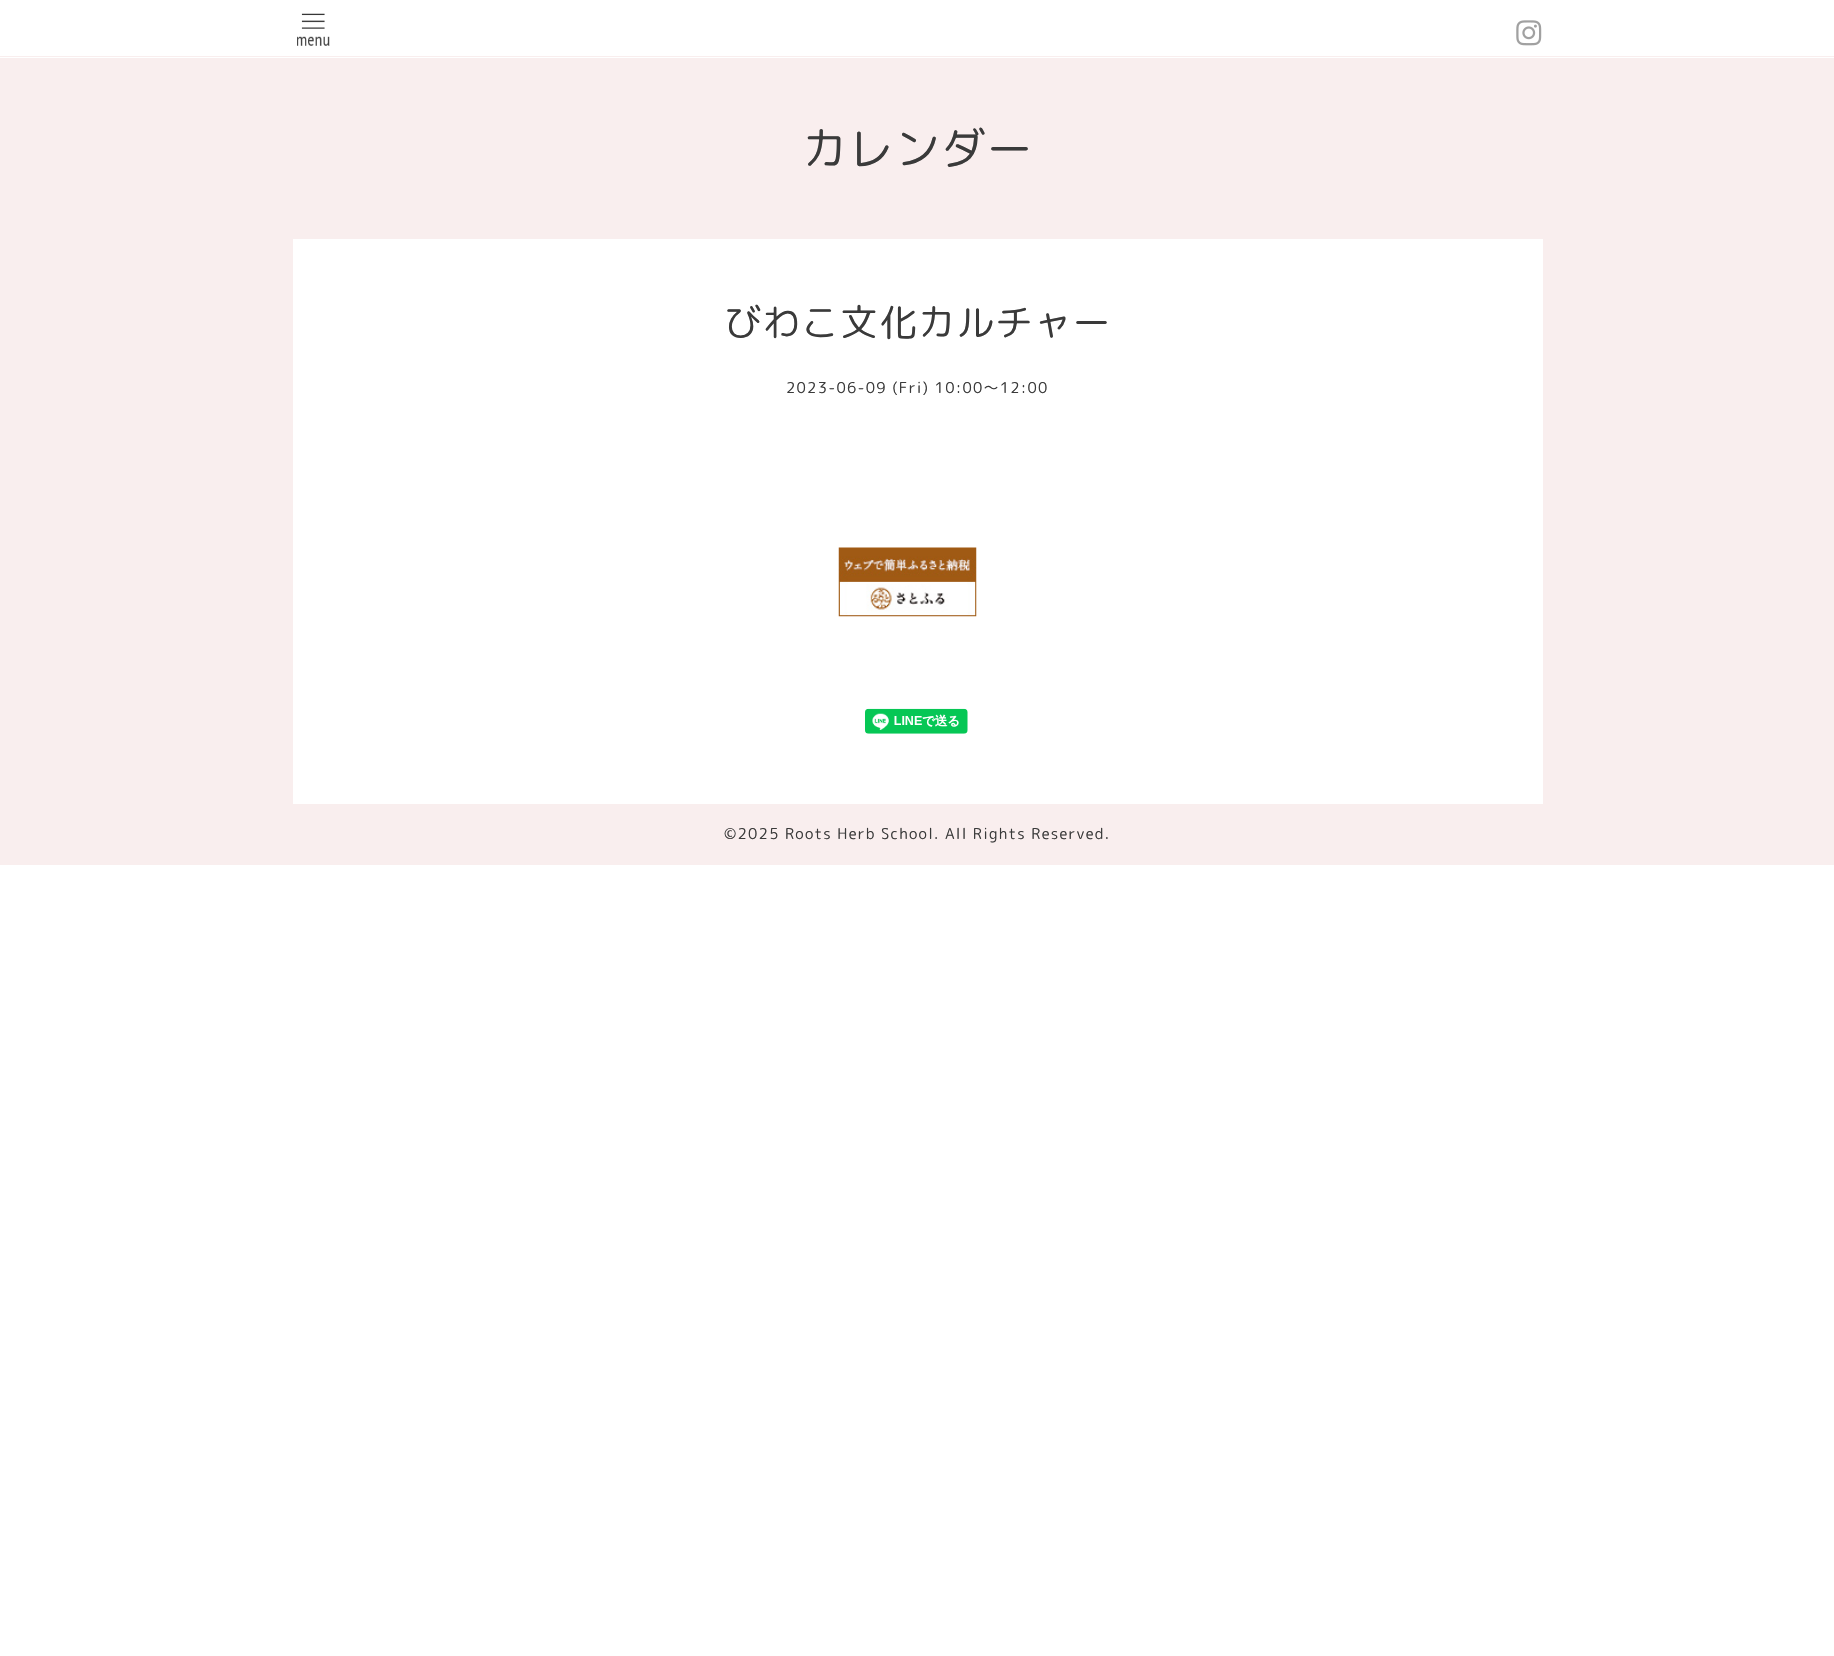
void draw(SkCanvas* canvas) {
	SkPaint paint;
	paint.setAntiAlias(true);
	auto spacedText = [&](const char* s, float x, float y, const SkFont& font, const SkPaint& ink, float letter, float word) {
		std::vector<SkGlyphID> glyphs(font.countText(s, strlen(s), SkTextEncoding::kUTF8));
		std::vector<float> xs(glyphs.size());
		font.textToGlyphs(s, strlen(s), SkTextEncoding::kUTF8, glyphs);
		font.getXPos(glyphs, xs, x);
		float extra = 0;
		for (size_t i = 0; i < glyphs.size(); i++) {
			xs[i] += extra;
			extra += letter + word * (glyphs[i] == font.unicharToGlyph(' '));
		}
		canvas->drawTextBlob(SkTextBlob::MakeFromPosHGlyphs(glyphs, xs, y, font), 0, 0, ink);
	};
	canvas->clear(0xffffffff);
	paint.setColor(0xfff9eeee);
	canvas->drawRect(SkRect::MakeXYWH(0, 58, 1834, 807), paint);
	canvas->drawRect(SkRect::MakeXYWH(0, 56, 1834, 1), paint);
	canvas->drawImageRect(SkImages::DeferredFromEncodedData(SkData::MakeFromFileName("img1.png")), SkRect::MakeXYWH(297, 13, 33, 33), SkSamplingOptions());
	canvas->drawImageRect(SkImages::DeferredFromEncodedData(SkData::MakeFromFileName("img2.png")), SkRect::MakeXYWH(1516, 20, 26, 26), SkSamplingOptions());
	paint.setColor(0xffffffff);
	canvas->drawRect(SkRect::MakeXYWH(293, 239, 1250, 565), paint);
	SkFont f1(fontMgr->matchFamilyStyle("Rounded Mplus 1c", SkFontStyle::Normal()), 45);
	f1.setSubpixel(true);
	paint.setColor(0xff3a3a3a);
	spacedText("カレンダー", 802, 165, f1, paint, 1.25, 0);
	SkFont f2(fontMgr->matchFamilyStyle("Rounded Mplus 1c", SkFontStyle::Normal()), 37.5);
	f2.setSubpixel(true);
	spacedText("びわこ文化カルチャー", 724, 336, f2, paint, 1.25, 0);
	SkFont f3(fontMgr->matchFamilyStyle("Rounded Mplus 1c", SkFontStyle::Normal()), 15);
	f3.setSubpixel(true);
	spacedText("2023-06-09 (Fri) 10:00～12:00", 786, 393, f3, paint, 1.25, 0);
	canvas->drawImageRect(SkImages::DeferredFromEncodedData(SkData::MakeFromFileName("img3.png")), SkRect::MakeXYWH(838, 547, 139, 70), SkSamplingOptions());
	canvas->drawImageRect(SkImages::DeferredFromEncodedData(SkData::MakeFromFileName("img4.png")), SkRect::MakeXYWH(865, 708, 103, 26), SkSamplingOptions());
	spacedText("©2025 Roots Herb School. All Rights Reserved.", 724, 839, f3, paint, 1.25, 0);
}
